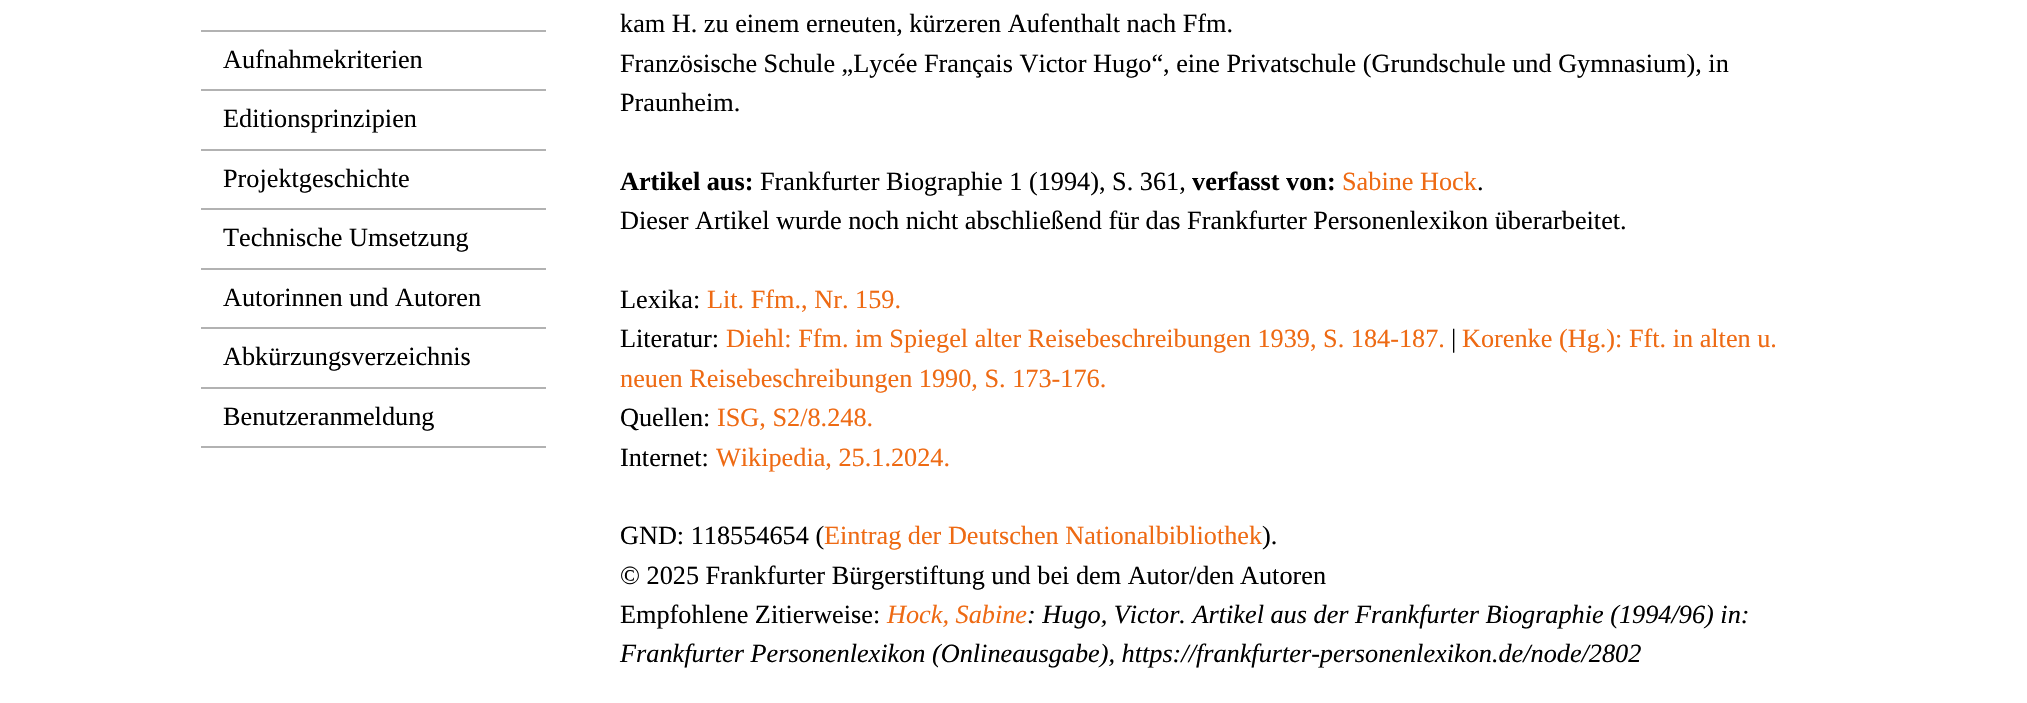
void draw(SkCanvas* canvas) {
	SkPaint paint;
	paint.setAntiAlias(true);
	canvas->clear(0xffffffff);
	paint.setColor(0xffb2b2b2);
	canvas->drawRect(SkRect::MakeXYWH(201, 30, 345, 2), paint);
	SkFont f1(fontMgr->matchFamilyStyle("Liberation Serif", SkFontStyle::Normal()), 26.25);
	f1.setSubpixel(true);
	paint.setColor(0xff000000);
	canvas->drawString("Aufnahmekriterien", 223, 68, f1, paint);
	paint.setColor(0xffb2b2b2);
	canvas->drawRect(SkRect::MakeXYWH(201, 89, 345, 2), paint);
	paint.setColor(0xff000000);
	canvas->drawString("Editionsprinzipien", 223, 127, f1, paint);
	paint.setColor(0xffb2b2b2);
	canvas->drawRect(SkRect::MakeXYWH(201, 149, 345, 2), paint);
	paint.setColor(0xff000000);
	canvas->drawString("Projektgeschichte", 223, 187, f1, paint);
	paint.setColor(0xffb2b2b2);
	canvas->drawRect(SkRect::MakeXYWH(201, 208, 345, 2), paint);
	paint.setColor(0xff000000);
	canvas->drawString("Technische Umsetzung", 223, 246, f1, paint);
	paint.setColor(0xffb2b2b2);
	canvas->drawRect(SkRect::MakeXYWH(201, 268, 345, 2), paint);
	paint.setColor(0xff000000);
	canvas->drawString("Autorinnen und Autoren", 223, 306, f1, paint);
	paint.setColor(0xffb2b2b2);
	canvas->drawRect(SkRect::MakeXYWH(201, 327, 345, 2), paint);
	paint.setColor(0xff000000);
	canvas->drawString("Abkürzungsverzeichnis", 223, 365, f1, paint);
	paint.setColor(0xffb2b2b2);
	canvas->drawRect(SkRect::MakeXYWH(201, 387, 345, 2), paint);
	canvas->drawRect(SkRect::MakeXYWH(201, 446, 345, 2), paint);
	paint.setColor(0xff000000);
	canvas->drawString("Benutzeranmeldung", 223, 425, f1, paint);
	canvas->drawString("kam H. zu einem erneuten, kürzeren Aufenthalt nach Ffm.", 620, 32, f1, paint);
	canvas->drawString("Französische Schule „Lycée Français Victor Hugo“, eine Privatschule (Grundschule und Gymnasium), in", 620, 72, f1, paint);
	canvas->drawString("Praunheim.", 620, 111, f1, paint);
	SkFont f2(fontMgr->matchFamilyStyle("Liberation Serif", SkFontStyle::Bold()), 26.25);
	f2.setSubpixel(true);
	canvas->drawString("Artikel aus:", 620, 190, f2, paint);
	canvas->drawString("Frankfurter Biographie 1 (1994), S. 361,", 760, 190, f1, paint);
	canvas->drawString("verfasst von:", 1192, 190, f2, paint);
	paint.setColor(0xffee6a13);
	canvas->drawString("Sabine Hock", 1342, 190, f1, paint);
	paint.setColor(0xff000000);
	canvas->drawString(".", 1477, 190, f1, paint);
	canvas->drawString("Dieser Artikel wurde noch nicht abschließend für das Frankfurter Personenlexikon überarbeitet.", 620, 229, f1, paint);
	canvas->drawString("Lexika:", 620, 308, f1, paint);
	paint.setColor(0xffee6a13);
	canvas->drawString("Lit. Ffm., Nr. 159.", 707, 308, f1, paint);
	paint.setColor(0xff000000);
	canvas->drawString("Literatur:", 620, 347, f1, paint);
	paint.setColor(0xffee6a13);
	canvas->drawString("Diehl: Ffm. im Spiegel alter Reisebeschreibungen 1939, S. 184-187.", 726, 347, f1, paint);
	paint.setColor(0xff000000);
	canvas->drawString("|", 1451, 347, f1, paint);
	paint.setColor(0xffee6a13);
	canvas->drawString("Korenke (Hg.): Fft. in alten u.", 1462, 347, f1, paint);
	canvas->drawString("neuen Reisebeschreibungen 1990, S. 173-176.", 620, 387, f1, paint);
	paint.setColor(0xff000000);
	canvas->drawString("Quellen:", 620, 426, f1, paint);
	paint.setColor(0xffee6a13);
	canvas->drawString("ISG, S2/8.248.", 717, 426, f1, paint);
	paint.setColor(0xff000000);
	canvas->drawString("Internet:", 620, 466, f1, paint);
	paint.setColor(0xffee6a13);
	canvas->drawString("Wikipedia, 25.1.2024.", 716, 466, f1, paint);
	paint.setColor(0xff000000);
	canvas->drawString("GND: 118554654 (", 620, 544, f1, paint);
	paint.setColor(0xffee6a13);
	canvas->drawString("Eintrag der Deutschen Nationalbibliothek", 824, 544, f1, paint);
	paint.setColor(0xff000000);
	canvas->drawString(").", 1262, 544, f1, paint);
	canvas->drawString("© 2025 Frankfurter Bürgerstiftung und bei dem Autor/den", 620, 584, f1, paint);
	canvas->drawString("Autoren", 1240, 584, f1, paint);
	canvas->drawString("Empfohlene Zitierweise:", 620, 623, f1, paint);
	SkFont f3(fontMgr->matchFamilyStyle("Liberation Serif", SkFontStyle::Italic()), 26.25);
	f3.setSubpixel(true);
	paint.setColor(0xffee6a13);
	canvas->drawString("Hock, Sabine", 887, 623, f3, paint);
	paint.setColor(0xff000000);
	canvas->drawString(": Hugo, Victor. Artikel aus der Frankfurter Biographie (1994/96) in:", 1027, 623, f3, paint);
	canvas->drawString("Frankfurter Personenlexikon (Onlineausgabe), https://frankfurter-personenlexikon.de/node/2802", 620, 662, f3, paint);
}
